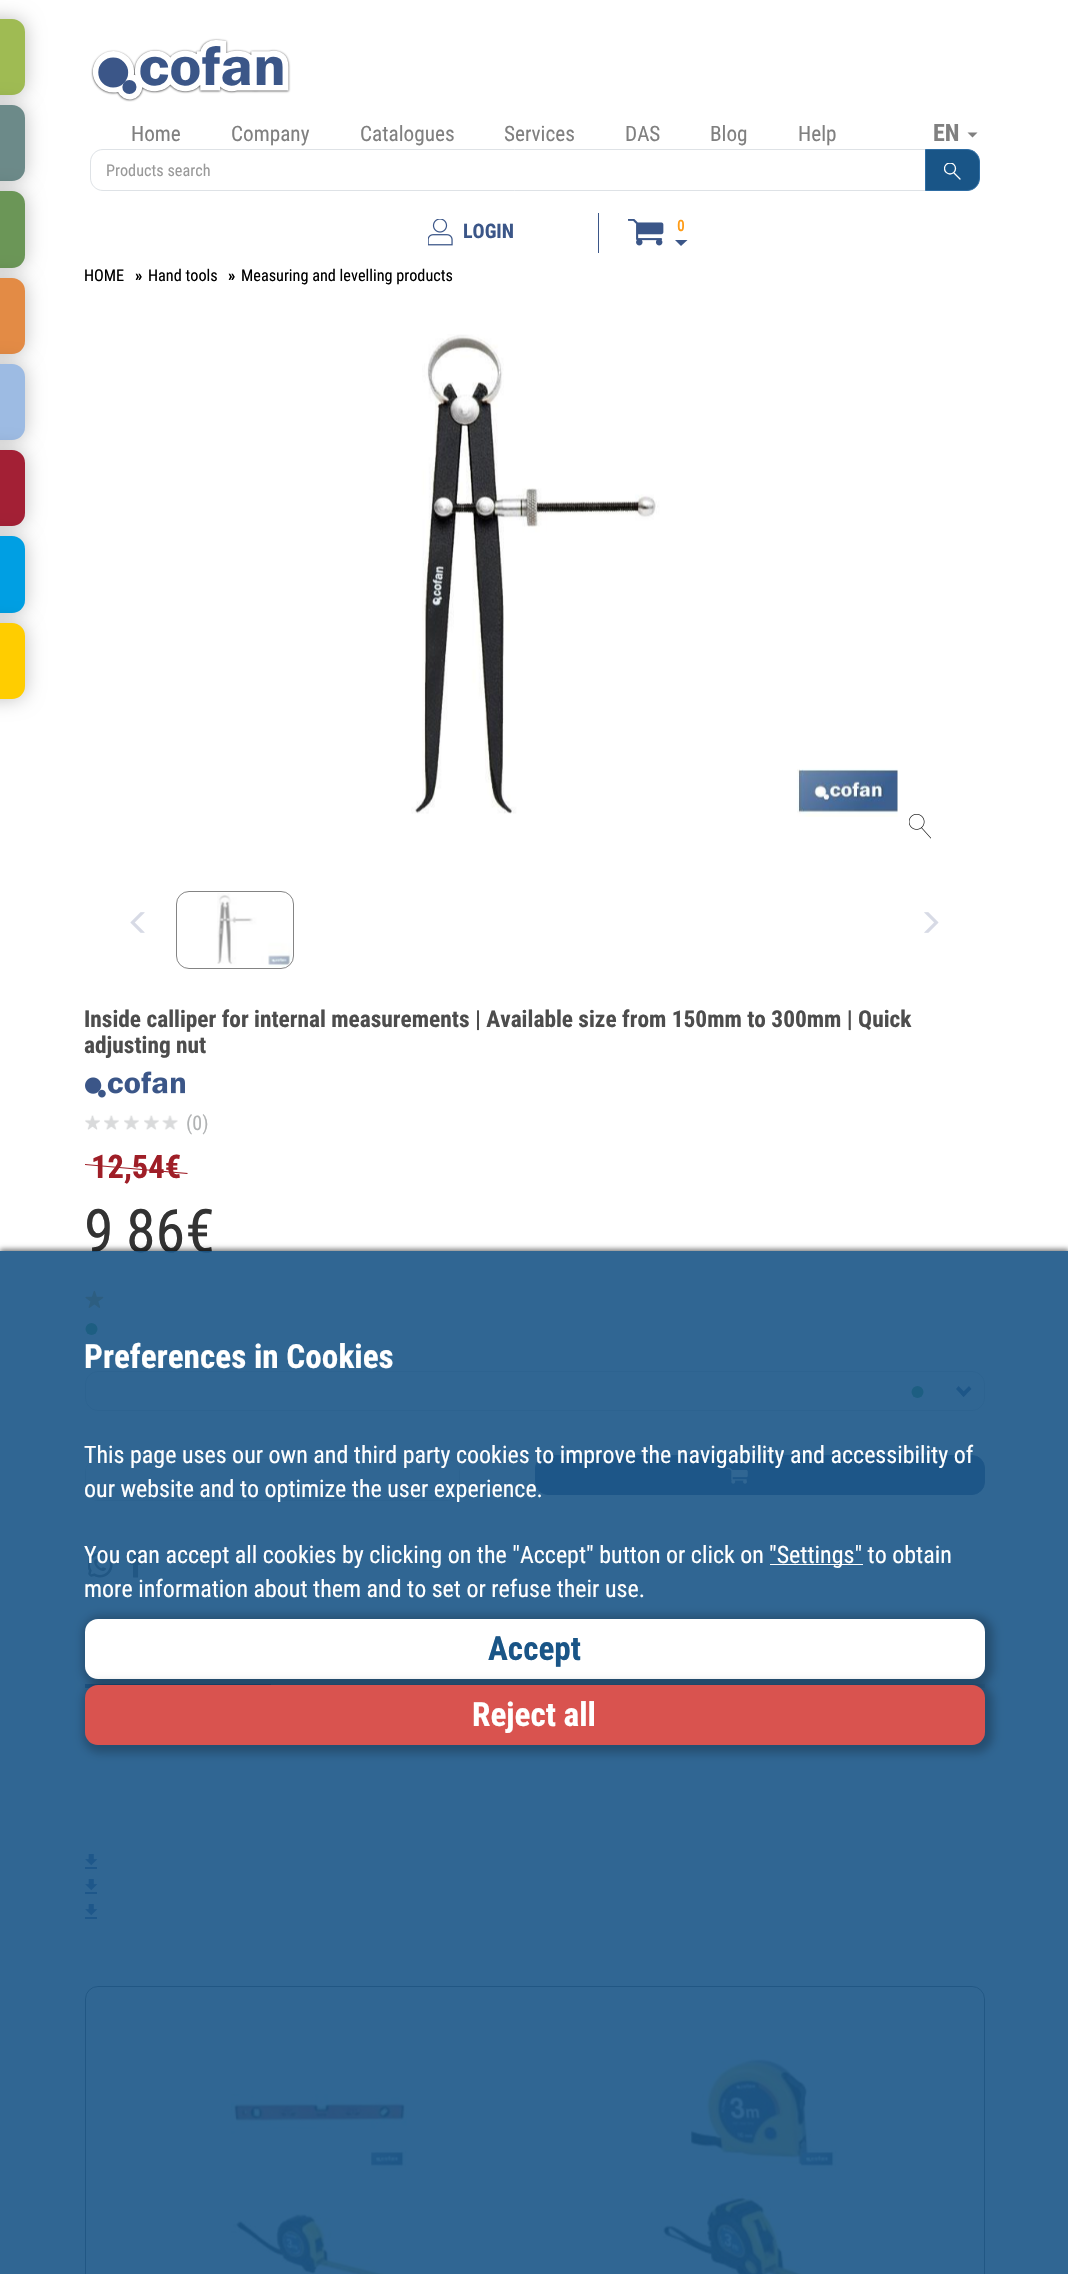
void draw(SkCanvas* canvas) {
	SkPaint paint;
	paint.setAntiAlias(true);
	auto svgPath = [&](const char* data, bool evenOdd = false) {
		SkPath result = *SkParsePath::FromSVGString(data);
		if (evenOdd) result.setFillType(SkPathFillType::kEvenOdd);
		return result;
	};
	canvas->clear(0xffffffff);
	canvas->drawImageRect(SkImages::DeferredFromEncodedData(SkData::MakeFromFileName("img1.png")), SkRect::MakeXYWH(91, 38, 200, 64), SkSamplingOptions());
	SkFont f1(fontMgr->matchFamilyStyle("Roboto Condensed", SkFontStyle::Normal()), 21.25);
	f1.setSubpixel(true);
	paint.setColor(0xff808080);
	canvas->drawString("Home", 131, 141, f1, paint);
	canvas->drawString("Company", 231, 141, f1, paint);
	canvas->drawString("Catalogues", 360, 141, f1, paint);
	canvas->drawString("Services", 504, 141, f1, paint);
	canvas->drawString("DAS", 625, 141, f1, paint);
	canvas->drawString("Blog", 710, 141, f1, paint);
	canvas->drawString("Help", 798, 141, f1, paint);
	SkFont f2(fontMgr->matchFamilyStyle("Roboto Condensed", SkFontStyle::Bold()), 24);
	f2.setSubpixel(true);
	canvas->drawString("EN", 933, 141, f2, paint);
	canvas->drawPath(svgPath("M967.5 132.5H977.5L972.5 137.5Z"), paint);
	paint.setStroke(true);
	paint.setStrokeWidth(1);
	paint.setColor(0xffdee2e6);
	canvas->drawPath(svgPath("M103 149.5H925.5V190.5H103C96 190.5 90.5 185 90.5 178V162C90.5 155 96 149.5 103 149.5Z"), paint);
	SkFont f3(fontMgr->matchFamilyStyle("Roboto Condensed", SkFontStyle::Normal()), 16.25);
	f3.setSubpixel(true);
	paint.setStroke(false);
	paint.setColor(0xff999999);
	canvas->drawString("Products search", 106, 176, f3, paint);
	paint.setColor(0xff195587);
	canvas->drawPath(svgPath("M925.5 149.5H967C974 149.5 979.5 155 979.5 162V178C979.5 185 974 190.5 967 190.5H925.5Z"), paint);
	paint.setStroke(true);
	paint.setColor(0xff2e6da4);
	canvas->drawPath(svgPath("M925.5 149.5H967C974 149.5 979.5 155 979.5 162V178C979.5 185 974 190.5 967 190.5H925.5Z"), paint);
	canvas->save();
	canvas->clipRect(SkRect::MakeXYWH(944, 163, 17, 17));
	paint.setStrokeWidth(1.3);
	paint.setColor(0xffffffff);
	canvas->drawCircle(950, 168.5, 5.5, paint);
	canvas->restore();
	paint.setStrokeCap(SkPaint::kRound_Cap);
	canvas->drawPath(svgPath("M954 173L960 179"), paint);
	canvas->drawImageRect(SkImages::DeferredFromEncodedData(SkData::MakeFromFileName("img2.png")), SkRect::MakeXYWH(428, 219, 25, 27), SkSamplingOptions());
	SkFont f4(fontMgr->matchFamilyStyle("Roboto Condensed", SkFontStyle::Bold()), 20);
	f4.setSubpixel(true);
	paint.setStroke(false);
	paint.setColor(0xff3b5688);
	canvas->drawString("LOGIN", 463, 238, f4, paint);
	canvas->drawRect(SkRect::MakeXYWH(598, 213, 1, 40), paint);
	canvas->drawImageRect(SkImages::DeferredFromEncodedData(SkData::MakeFromFileName("img3.png")), SkRect::MakeXYWH(628, 219, 36, 27), SkSamplingOptions());
	SkFont f5(fontMgr->matchFamilyStyle("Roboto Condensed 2", SkFontStyle::Bold()), 15);
	f5.setSubpixel(true);
	paint.setColor(0xffff9c16);
	canvas->drawString("0", 677, 231, f5, paint);
	paint.setColor(0xff3b5688);
	canvas->drawPath(svgPath("M675 240H687.5L681 246Z"), paint);
	paint.setColor(0x40000000);
	paint.setMaskFilter(SkMaskFilter::MakeBlur(kNormal_SkBlurStyle, 9.5));
	canvas->drawRoundRect(SkRect::MakeXYWH(-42, 19, 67, 76), 13, 13, paint);
	paint.setMaskFilter(nullptr);
	paint.setColor(0xff9fbb53);
	canvas->drawRoundRect(SkRect::MakeXYWH(-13, 19, 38, 76), 13, 13, paint);
	paint.setColor(0x40000000);
	paint.setMaskFilter(SkMaskFilter::MakeBlur(kNormal_SkBlurStyle, 9.5));
	canvas->drawRoundRect(SkRect::MakeXYWH(-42, 105, 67, 76), 13, 13, paint);
	paint.setMaskFilter(nullptr);
	paint.setColor(0xff6c8a89);
	canvas->drawRoundRect(SkRect::MakeXYWH(-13, 105, 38, 76), 13, 13, paint);
	paint.setColor(0x40000000);
	paint.setMaskFilter(SkMaskFilter::MakeBlur(kNormal_SkBlurStyle, 9.5));
	canvas->drawRoundRect(SkRect::MakeXYWH(-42, 191, 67, 77), 13, 13, paint);
	paint.setMaskFilter(nullptr);
	paint.setColor(0xff6b9657);
	canvas->drawRoundRect(SkRect::MakeXYWH(-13, 191, 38, 77), 13, 13, paint);
	paint.setColor(0x40000000);
	paint.setMaskFilter(SkMaskFilter::MakeBlur(kNormal_SkBlurStyle, 9.5));
	canvas->drawRoundRect(SkRect::MakeXYWH(-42, 278, 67, 76), 13, 13, paint);
	paint.setMaskFilter(nullptr);
	paint.setColor(0xffe38b45);
	canvas->drawRoundRect(SkRect::MakeXYWH(-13, 278, 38, 76), 13, 13, paint);
	paint.setColor(0x40000000);
	paint.setMaskFilter(SkMaskFilter::MakeBlur(kNormal_SkBlurStyle, 9.5));
	canvas->drawRoundRect(SkRect::MakeXYWH(-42, 364, 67, 76), 13, 13, paint);
	paint.setMaskFilter(nullptr);
	paint.setColor(0xff9dbbe3);
	canvas->drawRoundRect(SkRect::MakeXYWH(-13, 364, 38, 76), 13, 13, paint);
	paint.setColor(0x40000000);
	paint.setMaskFilter(SkMaskFilter::MakeBlur(kNormal_SkBlurStyle, 9.5));
	canvas->drawRoundRect(SkRect::MakeXYWH(-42, 450, 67, 76), 13, 13, paint);
	paint.setMaskFilter(nullptr);
	paint.setColor(0xffa32035);
	canvas->drawRoundRect(SkRect::MakeXYWH(-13, 450, 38, 76), 13, 13, paint);
	paint.setColor(0x40000000);
	paint.setMaskFilter(SkMaskFilter::MakeBlur(kNormal_SkBlurStyle, 9.5));
	canvas->drawRoundRect(SkRect::MakeXYWH(-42, 536, 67, 77), 13, 13, paint);
	paint.setMaskFilter(nullptr);
	paint.setColor(0xff009fe3);
	canvas->drawRoundRect(SkRect::MakeXYWH(-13, 536, 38, 77), 13, 13, paint);
	paint.setColor(0x40000000);
	paint.setMaskFilter(SkMaskFilter::MakeBlur(kNormal_SkBlurStyle, 9.5));
	canvas->drawRoundRect(SkRect::MakeXYWH(-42, 623, 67, 76), 13, 13, paint);
	paint.setMaskFilter(nullptr);
	paint.setColor(0xffffcd00);
	canvas->drawRoundRect(SkRect::MakeXYWH(-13, 623, 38, 76), 13, 13, paint);
	paint.setColor(0xff000000);
	canvas->drawString("HOME", 84, 281, f3, paint);
	SkFont f6(fontMgr->matchFamilyStyle("Roboto Condensed", SkFontStyle::Bold()), 16.25);
	f6.setSubpixel(true);
	canvas->drawString("»", 135, 281, f6, paint);
	canvas->drawString("Hand tools", 148, 281, f3, paint);
	canvas->drawString("»", 228, 281, f6, paint);
	canvas->drawString("Measuring and levelling products", 241, 281, f3, paint);
	canvas->drawImageRect(SkImages::DeferredFromEncodedData(SkData::MakeFromFileName("img4.png")), SkRect::MakeXYWH(411, 334, 487, 483), SkSamplingOptions());
	canvas->drawImageRect(SkImages::DeferredFromEncodedData(SkData::MakeFromFileName("img5.png")), SkRect::MakeXYWH(909, 814, 22, 25), SkSamplingOptions());
	canvas->drawImageRect(SkImages::DeferredFromEncodedData(SkData::MakeFromFileName("img6.png")), SkRect::MakeXYWH(130, 912, 15, 21), SkSamplingOptions());
	paint.setStroke(true);
	paint.setStrokeWidth(1);
	paint.setStrokeCap(SkPaint::kButt_Cap);
	paint.setColor(0xff848484);
	canvas->drawRoundRect(SkRect::MakeXYWH(176.5, 891.5, 117, 77), 12.5, 12.5, paint);
	canvas->drawImageRect(SkImages::DeferredFromEncodedData(SkData::MakeFromFileName("img7.png")), SkRect::MakeXYWH(217, 893, 75, 74), SkSamplingOptions());
	canvas->drawImageRect(SkImages::DeferredFromEncodedData(SkData::MakeFromFileName("img8.png")), SkRect::MakeXYWH(924, 912, 15, 21), SkSamplingOptions());
	SkFont f7(fontMgr->matchFamilyStyle("Roboto Condensed", SkFontStyle::Bold()), 23.35);
	f7.setSubpixel(true);
	paint.setStroke(false);
	paint.setColor(0xff4d4d4d);
	canvas->drawString("Inside calliper for internal measurements | Available size from 150mm to 300mm | Quick", 84, 1027, f7, paint);
	canvas->drawString("adjusting nut", 84, 1053, f7, paint);
	canvas->drawImageRect(SkImages::DeferredFromEncodedData(SkData::MakeFromFileName("img9.png")), SkRect::MakeXYWH(85, 1071, 100, 27), SkSamplingOptions());
	canvas->drawImageRect(SkImages::DeferredFromEncodedData(SkData::MakeFromFileName("img10.png")), SkRect::MakeXYWH(85, 1115, 15, 15), SkSamplingOptions());
	canvas->drawImageRect(SkImages::DeferredFromEncodedData(SkData::MakeFromFileName("img11.png")), SkRect::MakeXYWH(104, 1115, 15, 15), SkSamplingOptions());
	canvas->drawImageRect(SkImages::DeferredFromEncodedData(SkData::MakeFromFileName("img11.png")), SkRect::MakeXYWH(124, 1115, 15, 15), SkSamplingOptions());
	canvas->drawImageRect(SkImages::DeferredFromEncodedData(SkData::MakeFromFileName("img11.png")), SkRect::MakeXYWH(144, 1115, 15, 15), SkSamplingOptions());
	canvas->drawImageRect(SkImages::DeferredFromEncodedData(SkData::MakeFromFileName("img12.png")), SkRect::MakeXYWH(162, 1115, 16, 15), SkSamplingOptions());
	SkFont f8(fontMgr->matchFamilyStyle("Roboto Condensed", SkFontStyle::Normal()), 20);
	f8.setSubpixel(true);
	paint.setColor(0xffb1b3b4);
	canvas->drawString("(0)", 186, 1130, f8, paint);
	SkFont f9(fontMgr->matchFamilyStyle("Roboto Condensed", SkFontStyle::Bold()), 32.5);
	f9.setSubpixel(true);
	paint.setColor(0xff9f1e27);
	canvas->drawString("12,54€", 91, 1178, f9, paint);
	canvas->drawPath(svgPath("M85 1164L188 1173L187 1174L85 1165Z"), paint);
	SkFont f10(fontMgr->matchFamilyStyle("Roboto Condensed", SkFontStyle::Normal()), 60);
	f10.setSubpixel(true);
	paint.setColor(0xff333333);
	canvas->drawString("9", 84, 1252, f10, paint);
	canvas->drawString("86€", 126, 1252, f10, paint);
	canvas->drawImageRect(SkImages::DeferredFromEncodedData(SkData::MakeFromFileName("img13.png")), SkRect::MakeXYWH(85, 1290, 19, 18), SkSamplingOptions());
	paint.setColor(0xff39a94a);
	canvas->drawCircle(91.5, 1329, 6, paint);
	paint.setStroke(true);
	paint.setColor(0xffd8d8d8);
	canvas->drawRoundRect(SkRect::MakeXYWH(85.5, 1371.5, 899, 39), 12.5, 12.5, paint);
	paint.setStroke(false);
	paint.setColor(0xff39a94a);
	canvas->drawCircle(917.5, 1392, 6, paint);
	paint.setColor(0xff3b5688);
	canvas->drawPath(svgPath("M969 1386L971.5 1389L963.5 1397L961 1394Z"), paint);
	canvas->drawPath(svgPath("M958.5 1386L966.5 1394L963.5 1397L956 1389Z"), paint);
	paint.setStroke(true);
	paint.setColor(0xffd8d8d8);
	canvas->drawRoundRect(SkRect::MakeXYWH(85.5, 1459.5, 374, 41), 12.5, 12.5, paint);
	paint.setStroke(false);
	paint.setColor(0xffffffff);
	canvas->drawPath(svgPath("M97 1460H121C124 1460 126 1462 126 1465V1495C126 1498 124 1500 121 1500H97C91 1500 86 1495 86 1489V1471C86 1465 91 1460 97 1460Z"), paint);
	canvas->drawPath(svgPath("M424 1460H448C454 1460 459 1465 459 1471V1489C459 1495 454 1500 448 1500H424C421 1500 419 1498 419 1495V1465C419 1462 421 1460 424 1460Z"), paint);
	paint.setColor(0xff3b5688);
	canvas->drawRoundRect(SkRect::MakeXYWH(535.5, 1455.5, 449, 39), 12.5, 12.5, paint);
	paint.setStroke(true);
	canvas->drawRoundRect(SkRect::MakeXYWH(535.5, 1455.5, 449, 39), 12.5, 12.5, paint);
	canvas->drawImageRect(SkImages::DeferredFromEncodedData(SkData::MakeFromFileName("img14.png")), SkRect::MakeXYWH(726, 1467, 22, 17), SkSamplingOptions());
	canvas->drawImageRect(SkImages::DeferredFromEncodedData(SkData::MakeFromFileName("img15.png")), SkRect::MakeXYWH(88, 1553, 25, 25), SkSamplingOptions());
	canvas->drawImageRect(SkImages::DeferredFromEncodedData(SkData::MakeFromFileName("img16.png")), SkRect::MakeXYWH(130, 1553, 13, 25), SkSamplingOptions());
	paint.setStroke(false);
	paint.setColor(0xffd6d6d6);
	canvas->drawRect(SkRect::MakeXYWH(271, 1684, 714, 4), paint);
	paint.setColor(0xff3b5688);
	canvas->drawRect(SkRect::MakeXYWH(85, 1684, 186, 4), paint);
	canvas->drawImageRect(SkImages::DeferredFromEncodedData(SkData::MakeFromFileName("img17.png")), SkRect::MakeXYWH(85, 1854, 13, 15), SkSamplingOptions());
	canvas->drawImageRect(SkImages::DeferredFromEncodedData(SkData::MakeFromFileName("img17.png")), SkRect::MakeXYWH(85, 1879, 13, 15), SkSamplingOptions());
	canvas->drawImageRect(SkImages::DeferredFromEncodedData(SkData::MakeFromFileName("img17.png")), SkRect::MakeXYWH(85, 1904, 13, 15), SkSamplingOptions());
	paint.setStroke(true);
	paint.setColor(0xff666666);
	canvas->drawRoundRect(SkRect::MakeXYWH(85.5, 1986.5, 899, 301), 12.5, 12.5, paint);
	canvas->drawImageRect(SkImages::DeferredFromEncodedData(SkData::MakeFromFileName("img18.png")), SkRect::MakeXYWH(231, 2093, 177, 78), SkSamplingOptions());
	canvas->drawImageRect(SkImages::DeferredFromEncodedData(SkData::MakeFromFileName("img19.png")), SkRect::MakeXYWH(690, 2054, 148, 117), SkSamplingOptions());
	canvas->drawImageRect(SkImages::DeferredFromEncodedData(SkData::MakeFromFileName("img20.png")), SkRect::MakeXYWH(231, 2213, 161, 61), SkSamplingOptions());
	canvas->drawImageRect(SkImages::DeferredFromEncodedData(SkData::MakeFromFileName("img21.png")), SkRect::MakeXYWH(661, 2193, 174, 81), SkSamplingOptions());
	canvas->save();
	canvas->clipPath(svgPath("M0 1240H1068V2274H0ZM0 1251H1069V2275H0Z", true), true);
	paint.setStroke(false);
	paint.setColor(0x80000000);
	paint.setMaskFilter(SkMaskFilter::MakeBlur(kNormal_SkBlurStyle, 2.5));
	canvas->drawRect(SkRect::MakeXYWH(0, 1249, 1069, 1024), paint);
	paint.setMaskFilter(nullptr);
	canvas->restore();
	paint.setColor(0xe6195587);
	canvas->drawRect(SkRect::MakeXYWH(0, 1251, 1068, 1023), paint);
	SkFont f11(fontMgr->matchFamilyStyle("Roboto Condensed", SkFontStyle::Bold()), 33.25);
	f11.setSubpixel(true);
	paint.setColor(0xffffffff);
	canvas->drawString("Preferences in Cookies", 84, 1368, f11, paint);
	SkFont f12(fontMgr->matchFamilyStyle("Roboto Condensed", SkFontStyle::Normal()), 24);
	f12.setSubpixel(true);
	canvas->drawString("This page uses our own and third party cookies to improve the navigability and accessibility of", 84, 1463, f12, paint);
	canvas->drawString("our website and to optimize the user experience.", 84, 1497, f12, paint);
	canvas->drawString("You can accept all cookies by clicking on the \"Accept\" button or click on", 84, 1563, f12, paint);
	canvas->drawRect(SkRect::MakeXYWH(770, 1564, 93, 1), paint);
	canvas->drawString("\"Settings\" to obtain", 769, 1563, f12, paint);
	canvas->drawString("more information about them and to set or refuse their use.", 84, 1597, f12, paint);
	paint.setColor(0x3d000000);
	paint.setMaskFilter(SkMaskFilter::MakeBlur(kNormal_SkBlurStyle, 5));
	canvas->drawRoundRect(SkRect::MakeXYWH(83, 1616, 910, 70), 18, 18, paint);
	paint.setMaskFilter(nullptr);
	paint.setColor(0xffffffff);
	canvas->drawRoundRect(SkRect::MakeXYWH(85, 1619, 900, 60), 13, 13, paint);
	paint.setColor(0xff195587);
	canvas->drawString("Accept", 488, 1660, f11, paint);
	paint.setColor(0x3d000000);
	paint.setMaskFilter(SkMaskFilter::MakeBlur(kNormal_SkBlurStyle, 5));
	canvas->drawRoundRect(SkRect::MakeXYWH(83, 1683, 910, 70), 18, 18, paint);
	paint.setMaskFilter(nullptr);
	paint.setColor(0xffd9534f);
	canvas->drawRoundRect(SkRect::MakeXYWH(85, 1685, 900, 60), 13, 13, paint);
	paint.setColor(0xffffffff);
	canvas->drawString("Reject all", 472, 1726, f11, paint);
}
